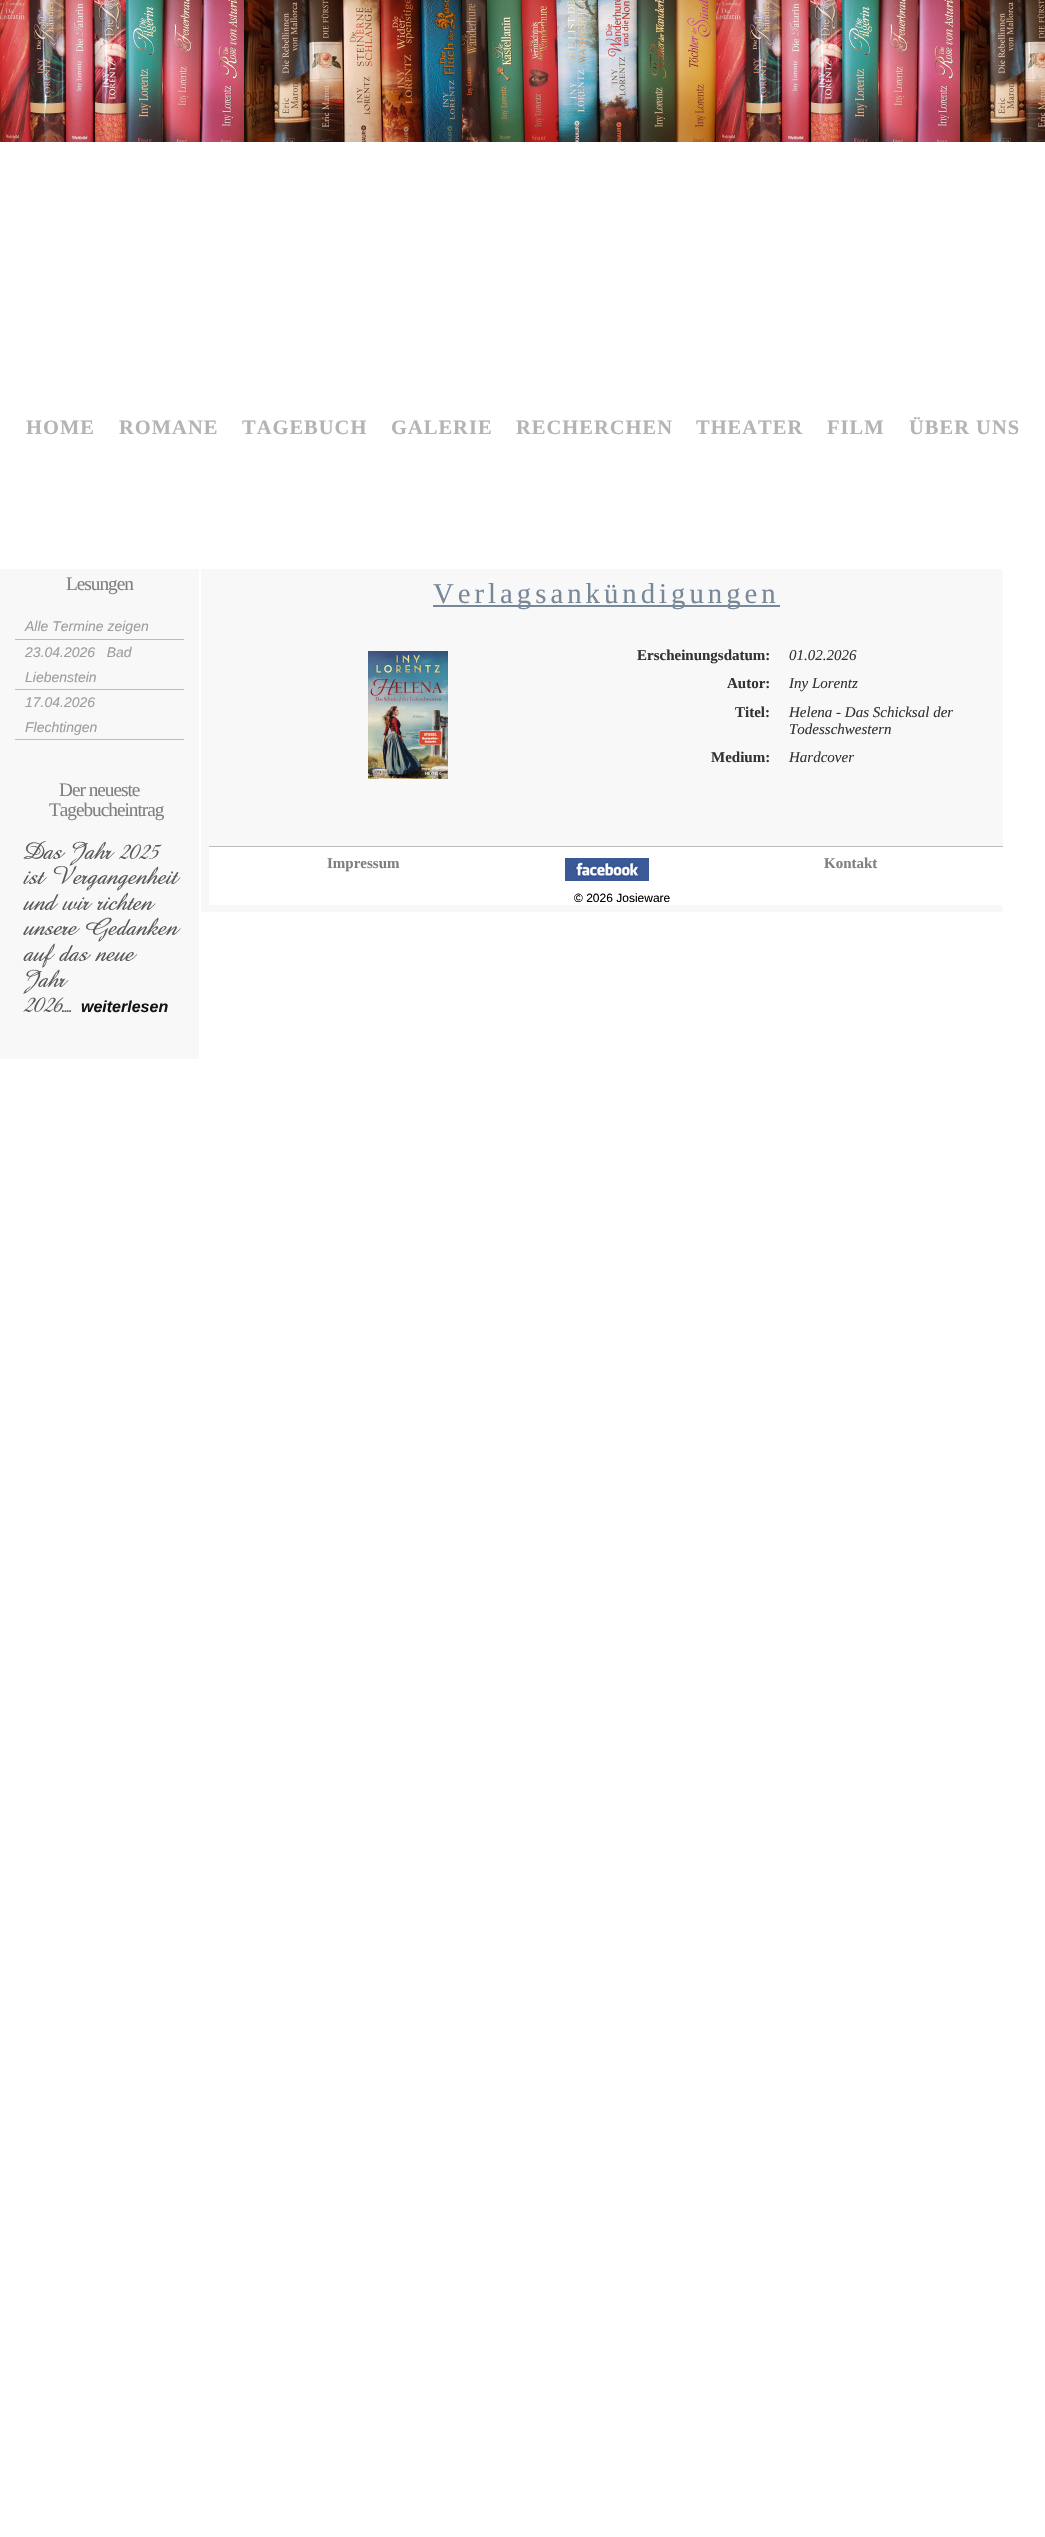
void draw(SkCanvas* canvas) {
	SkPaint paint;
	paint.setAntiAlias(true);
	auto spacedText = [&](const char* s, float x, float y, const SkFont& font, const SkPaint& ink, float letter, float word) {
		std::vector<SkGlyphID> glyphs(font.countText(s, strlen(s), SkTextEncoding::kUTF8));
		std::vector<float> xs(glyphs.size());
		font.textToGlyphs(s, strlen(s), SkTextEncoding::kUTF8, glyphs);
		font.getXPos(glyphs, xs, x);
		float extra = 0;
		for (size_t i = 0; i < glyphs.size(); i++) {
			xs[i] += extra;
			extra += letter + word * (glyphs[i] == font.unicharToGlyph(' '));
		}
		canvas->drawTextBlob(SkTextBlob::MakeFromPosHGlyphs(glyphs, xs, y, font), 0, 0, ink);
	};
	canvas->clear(0xffffffff);
	canvas->drawImageRect(SkImages::DeferredFromEncodedData(SkData::MakeFromFileName("img1.png")), SkRect::MakeXYWH(0, 0, 1045, 142), SkSamplingOptions());
	SkFont f1(fontMgr->matchFamilyStyle("Liberation Serif", SkFontStyle::Bold()), 20.5);
	f1.setSubpixel(true);
	paint.setColor(0xffb4b4b4);
	spacedText("HOME", 26, 434, f1, paint, 1, 0);
	spacedText("ROMANE", 119, 434, f1, paint, 1, 0);
	spacedText("TAGEBUCH", 242, 434, f1, paint, 1, 0);
	spacedText("GALERIE", 391, 434, f1, paint, 1, 0);
	spacedText("RECHERCHEN", 516, 434, f1, paint, 1, 0);
	spacedText("THEATER", 696, 434, f1, paint, 1, 0);
	spacedText("FILM", 827, 434, f1, paint, 1, 0);
	spacedText("ÜBER UNS", 909, 434, f1, paint, 1, 0);
	paint.setColor(0xfff8f8f8);
	canvas->drawRect(SkRect::MakeXYWH(0, 569, 199, 490), paint);
	SkFont f2(fontMgr->matchFamilyStyle("Liberation Serif", SkFontStyle::Normal()), 19.25);
	f2.setSubpixel(true);
	paint.setColor(0xff808080);
	spacedText("Lesungen", 66, 590, f2, paint, -1, 0);
	paint.setColor(0xffbdbdbd);
	canvas->drawRect(SkRect::MakeXYWH(15, 639, 169, 1), paint);
	SkFont f3(fontMgr->matchFamilyStyle("Liberation Sans", SkFontStyle::Italic()), 14);
	f3.setSubpixel(true);
	paint.setColor(0xff9e9e9e);
	canvas->drawString("Alle Termine zeigen", 25, 631, f3, paint);
	paint.setColor(0xffbdbdbd);
	canvas->drawRect(SkRect::MakeXYWH(15, 689, 169, 1), paint);
	paint.setColor(0xff9e9e9e);
	canvas->drawString("23.04.2026   Bad", 25, 657, f3, paint);
	canvas->drawString("Liebenstein", 25, 682, f3, paint);
	paint.setColor(0xffbdbdbd);
	canvas->drawRect(SkRect::MakeXYWH(15, 739, 169, 1), paint);
	paint.setColor(0xff9e9e9e);
	canvas->drawString("17.04.2026", 25, 707, f3, paint);
	canvas->drawString("Flechtingen", 25, 732, f3, paint);
	paint.setColor(0xff808080);
	spacedText("Der neueste", 59, 796, f2, paint, -1, 0);
	spacedText("Tagebucheintrag", 49, 816, f2, paint, -1, 0);
	SkFont f4(fontMgr->matchFamilyStyle("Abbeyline", SkFontStyle::Italic()), 16);
	f4.setSubpixel(true);
	paint.setColor(0xff585858);
	canvas->drawString("Das Jahr 2025", 23, 859, f4, paint);
	canvas->drawString("ist Vergangenheit", 23, 884, f4, paint);
	canvas->drawString("und wir richten", 23, 910, f4, paint);
	canvas->drawString("unsere Gedanken", 23, 935, f4, paint);
	canvas->drawString("auf das neue", 23, 961, f4, paint);
	canvas->drawString("Jahr", 23, 987, f4, paint);
	canvas->drawString("2026....", 23, 1012, f4, paint);
	SkFont f5(fontMgr->matchFamilyStyle("Liberation Sans", SkFontStyle::BoldItalic()), 16);
	f5.setSubpixel(true);
	paint.setColor(0xff151515);
	canvas->drawString("weiterlesen", 81, 1012, f5, paint);
	paint.setColor(0xfff8f8f8);
	canvas->drawRect(SkRect::MakeXYWH(201, 569, 802, 343), paint);
	paint.setColor(0xff778899);
	canvas->drawRect(SkRect::MakeXYWH(433, 605, 347, 2), paint);
	SkFont f6(fontMgr->matchFamilyStyle("Liberation Serif", SkFontStyle::Normal()), 28.75);
	f6.setSubpixel(true);
	spacedText("Verlagsankündigungen", 433, 603, f6, paint, 4, 0);
	canvas->drawImageRect(SkImages::DeferredFromEncodedData(SkData::MakeFromFileName("img2.png")), SkRect::MakeXYWH(368, 651, 80, 128), SkSamplingOptions());
	SkFont f7(fontMgr->matchFamilyStyle("Liberation Serif", SkFontStyle::Bold()), 15);
	f7.setSubpixel(true);
	paint.setColor(0xff333333);
	canvas->drawString("Erscheinungsdatum:", 637, 660, f7, paint);
	SkFont f8(fontMgr->matchFamilyStyle("Liberation Serif", SkFontStyle::Italic()), 15);
	f8.setSubpixel(true);
	canvas->drawString("01.02.2026", 789, 660, f8, paint);
	canvas->drawString("Autor:", 727, 688, f7, paint);
	canvas->drawString("Iny Lorentz", 789, 688, f8, paint);
	canvas->drawString("Titel:", 735, 717, f7, paint);
	canvas->drawString("Helena - Das Schicksal der", 789, 717, f8, paint);
	canvas->drawString("Todesschwestern", 789, 734, f8, paint);
	canvas->drawString("Medium:", 711, 762, f7, paint);
	canvas->drawString("Hardcover", 789, 762, f8, paint);
	paint.setColor(0xffffffff);
	canvas->drawRect(SkRect::MakeXYWH(209, 847, 794, 58), paint);
	paint.setColor(0xffbdbdbd);
	canvas->drawRect(SkRect::MakeXYWH(209, 846, 794, 1), paint);
	paint.setColor(0xff808080);
	canvas->drawString("Impressum", 327, 868, f7, paint);
	canvas->drawImageRect(SkImages::DeferredFromEncodedData(SkData::MakeFromFileName("img3.png")), SkRect::MakeXYWH(565, 858, 84, 23), SkSamplingOptions());
	canvas->drawString("Kontakt", 824, 868, f7, paint);
	SkFont f9(fontMgr->matchFamilyStyle("Liberation Sans", SkFontStyle::Normal()), 12);
	f9.setSubpixel(true);
	paint.setColor(0xff000000);
	canvas->drawString("© 2026 Josieware", 574, 902, f9, paint);
}
